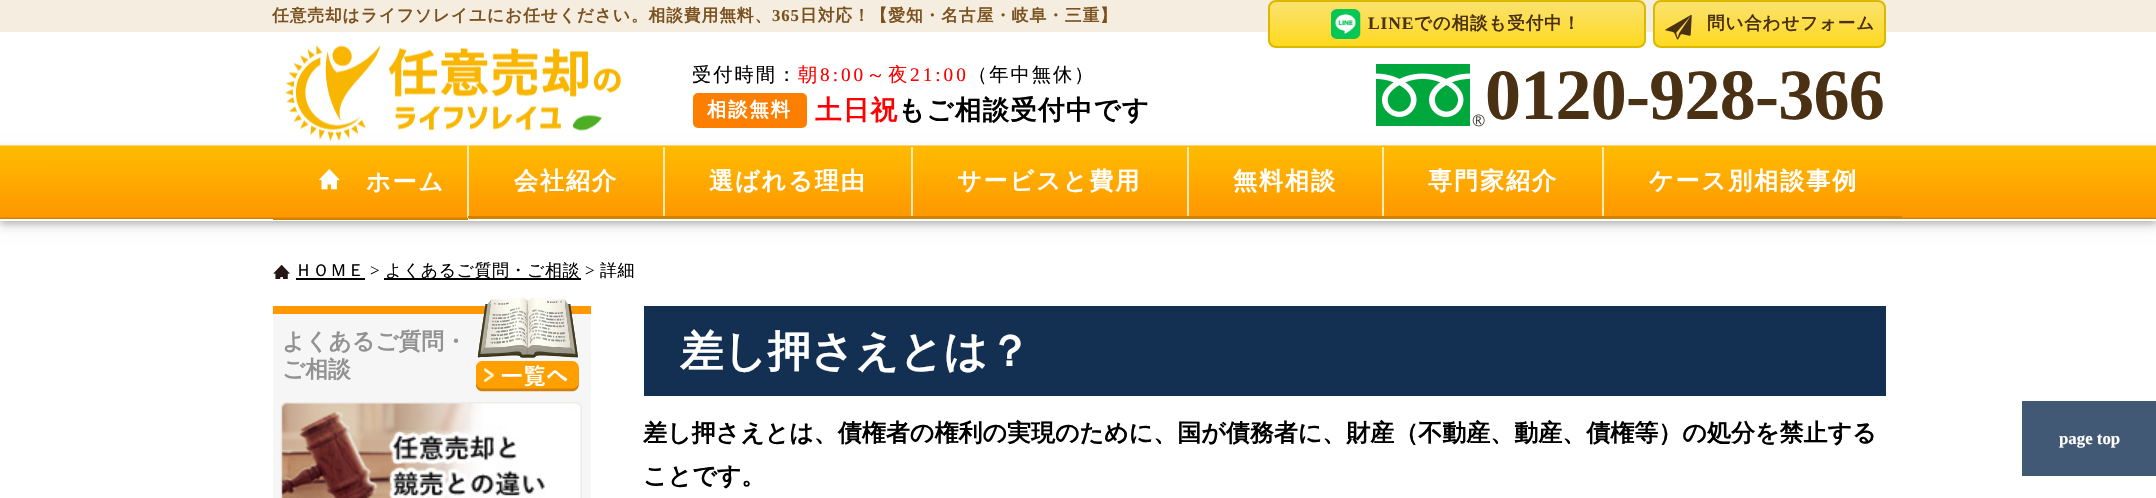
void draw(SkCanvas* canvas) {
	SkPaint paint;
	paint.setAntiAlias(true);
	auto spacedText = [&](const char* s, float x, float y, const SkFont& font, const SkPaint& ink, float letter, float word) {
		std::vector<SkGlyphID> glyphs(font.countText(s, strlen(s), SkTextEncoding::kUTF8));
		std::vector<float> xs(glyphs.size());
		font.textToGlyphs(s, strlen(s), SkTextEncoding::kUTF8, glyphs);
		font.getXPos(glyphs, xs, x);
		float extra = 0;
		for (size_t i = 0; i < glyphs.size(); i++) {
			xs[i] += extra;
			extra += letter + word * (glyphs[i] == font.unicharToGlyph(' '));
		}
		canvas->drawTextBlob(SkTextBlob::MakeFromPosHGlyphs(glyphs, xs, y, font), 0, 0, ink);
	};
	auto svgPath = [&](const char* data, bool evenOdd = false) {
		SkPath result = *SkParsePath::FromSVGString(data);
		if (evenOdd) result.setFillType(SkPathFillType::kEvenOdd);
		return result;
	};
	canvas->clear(0xffffffff);
	paint.setColor(0xfff5eddf);
	canvas->drawRect(SkRect::MakeXYWH(0, 0, 2156, 32), paint);
	SkFont f1(fontMgr->matchFamilyStyle("WenQuanYi Zen Hei", SkFontStyle::Bold()), 16.8);
	f1.setSubpixel(true);
	paint.setColor(0xff7b511f);
	spacedText("任意売却はライフソレイユにお任せください。相談費用無料、", 272, 21, f1, paint, 0.85, 0);
	SkFont f2(fontMgr->matchFamilyStyle("Liberation Serif", SkFontStyle::Bold()), 16.8);
	f2.setSubpixel(true);
	spacedText("365", 772, 21, f2, paint, 0.85, 0);
	spacedText("日対応！【愛知・名古屋・岐阜・三重】", 800, 21, f1, paint, 0.85, 0);
	canvas->save();
	canvas->clipPath(svgPath("M1276 0H1638C1642.5 0 1646 3.5 1646 8V40C1646 44.5 1642.5 48 1638 48H1276C1271.5 48 1268 44.5 1268 40V8C1268 3.5 1271.5 0 1276 0Z"), true);
	{
		const SkColor colors[] = {0xfffae26f, 0xffffd91e};
		const float stops[] = {0, 1};
		const SkPoint ends[] = {{1457, 1.5}, {1457, 47}};
		paint.setShader(SkGradientShader::MakeLinear(ends, colors, stops, 2, SkTileMode::kClamp));
		paint.setAlpha(255);
	}
	canvas->drawRect(SkRect::MakeXYWH(1268, 2, 378, 45), paint);
	canvas->restore();
	paint.setStroke(true);
	paint.setStrokeWidth(2);
	paint.setShader(nullptr);
	paint.setColor(0xffddb801);
	canvas->drawRoundRect(SkRect::MakeXYWH(1269, 1, 376, 46), 7, 7, paint);
	canvas->drawImageRect(SkImages::DeferredFromEncodedData(SkData::MakeFromFileName("img1.png")), SkRect::MakeXYWH(1331, 9, 30, 30), SkSamplingOptions());
	SkFont f3(fontMgr->matchFamilyStyle("Liberation Serif", SkFontStyle::Bold()), 17.5);
	f3.setSubpixel(true);
	paint.setStroke(false);
	paint.setColor(0xff4b3113);
	spacedText("LINE", 1368, 29, f3, paint, 0.9, 0);
	SkFont f4(fontMgr->matchFamilyStyle("WenQuanYi Zen Hei", SkFontStyle::Bold()), 17.5);
	f4.setSubpixel(true);
	spacedText("での相談も受付中！", 1414, 29, f4, paint, 0.9, 0);
	canvas->save();
	canvas->clipPath(svgPath("M1661 0H1878C1882.5 0 1886 3.5 1886 8V40C1886 44.5 1882.5 48 1878 48H1661C1656.5 48 1653 44.5 1653 40V8C1653 3.5 1656.5 0 1661 0Z"), true);
	{
		const SkColor colors[] = {0xfffae26f, 0xffffd91e};
		const float stops[] = {0, 1};
		const SkPoint ends[] = {{1769, 1.5}, {1769, 47}};
		paint.setShader(SkGradientShader::MakeLinear(ends, colors, stops, 2, SkTileMode::kClamp));
		paint.setAlpha(255);
	}
	canvas->drawRect(SkRect::MakeXYWH(1653, 2, 233, 45), paint);
	canvas->restore();
	paint.setStroke(true);
	paint.setShader(nullptr);
	paint.setColor(0xffddb801);
	canvas->drawRoundRect(SkRect::MakeXYWH(1654, 1, 231, 46), 7, 7, paint);
	canvas->drawImageRect(SkImages::DeferredFromEncodedData(SkData::MakeFromFileName("img2.png")), SkRect::MakeXYWH(1665, 15, 27, 25), SkSamplingOptions());
	paint.setStroke(false);
	paint.setColor(0xff4b3113);
	spacedText("問い合わせフォーム", 1707, 29, f4, paint, 0.9, 0);
	paint.setColor(0x1a000000);
	paint.setMaskFilter(SkMaskFilter::MakeBlur(kNormal_SkBlurStyle, 6));
	canvas->drawRect(SkRect::MakeXYWH(0, 152, 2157, 75), paint);
	paint.setMaskFilter(nullptr);
	paint.setColor(0x33000000);
	paint.setMaskFilter(SkMaskFilter::MakeBlur(kNormal_SkBlurStyle, 3));
	canvas->drawRect(SkRect::MakeXYWH(0, 149, 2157, 75), paint);
	paint.setMaskFilter(nullptr);
	canvas->drawImageRect(SkImages::DeferredFromEncodedData(SkData::MakeFromFileName("img3.png")), SkRect::MakeXYWH(285, 45, 336, 97), SkSamplingOptions());
	SkFont f5(fontMgr->matchFamilyStyle("WenQuanYi Zen Hei", SkFontStyle(500, SkFontStyle::kNormal_Width, SkFontStyle::kUpright_Slant)), 19.25);
	f5.setSubpixel(true);
	paint.setColor(0xff000000);
	spacedText("受付時間：", 692, 81, f5, paint, 2, 0);
	paint.setColor(0xffff0000);
	spacedText("朝", 798, 81, f5, paint, 3, 0);
	SkFont f6(fontMgr->matchFamilyStyle("Liberation Serif", SkFontStyle::Normal()), 19.25);
	f6.setSubpixel(true);
	spacedText("8:00", 820, 81, f6, paint, 3, 0);
	spacedText("～夜", 866, 81, f5, paint, 3, 0);
	spacedText("21:00", 910, 81, f6, paint, 3, 0);
	paint.setColor(0xff000000);
	spacedText("（年中無休）", 968, 81, f5, paint, 2, 0);
	paint.setColor(0xfffd7f02);
	canvas->drawRoundRect(SkRect::MakeXYWH(693, 93, 114, 35), 5, 5, paint);
	SkFont f7(fontMgr->matchFamilyStyle("WenQuanYi Zen Hei", SkFontStyle::Bold()), 19.25);
	f7.setSubpixel(true);
	paint.setColor(0xffffffff);
	spacedText("相談無料", 707, 116, f7, paint, 2, 0);
	SkFont f8(fontMgr->matchFamilyStyle("WenQuanYi Zen Hei", SkFontStyle::Bold()), 26.5);
	f8.setSubpixel(true);
	paint.setColor(0xffff0000);
	spacedText("土日祝", 815, 119, f8, paint, 1.25, 0);
	paint.setColor(0xff000000);
	spacedText("もご相談受付中です", 898, 119, f8, paint, 1.25, 0);
	canvas->drawImageRect(SkImages::DeferredFromEncodedData(SkData::MakeFromFileName("img4.png")), SkRect::MakeXYWH(1376, 64, 109, 63), SkSamplingOptions());
	SkFont f9(fontMgr->matchFamilyStyle("Liberation Serif", SkFontStyle::Bold()), 72);
	f9.setSubpixel(true);
	paint.setColor(0xff4b3113);
	spacedText("0120-928-366", 1485, 119, f9, paint, -0.75, 0);
	canvas->drawImageRect(SkImages::DeferredFromEncodedData(SkData::MakeFromFileName("img5.png")), SkRect::MakeXYWH(0, 145, 2156, 74), SkSamplingOptions());
	paint.setColor(0xffffffff);
	canvas->drawRect(SkRect::MakeXYWH(0, 219, 2156, 2), paint);
	paint.setColor(0xffffeab3);
	canvas->drawRect(SkRect::MakeXYWH(467, 146, 2, 73), paint);
	paint.setColor(0xffd18200);
	canvas->drawRect(SkRect::MakeXYWH(273, 218, 195, 2), paint);
	canvas->drawImageRect(SkImages::DeferredFromEncodedData(SkData::MakeFromFileName("img6.png")), SkRect::MakeXYWH(319, 169, 21, 21), SkSamplingOptions());
	SkFont f10(fontMgr->matchFamilyStyle("WenQuanYi Zen Hei", SkFontStyle::Bold()), 24);
	f10.setSubpixel(true);
	paint.setColor(0xffffffff);
	spacedText("ホーム", 366, 190, f10, paint, 2, 0);
	paint.setColor(0xffffeab3);
	canvas->drawRect(SkRect::MakeXYWH(663, 147, 2, 71), paint);
	paint.setColor(0xffd18200);
	canvas->drawRect(SkRect::MakeXYWH(468, 216, 197, 2), paint);
	paint.setColor(0xffffffff);
	spacedText("会社紹介", 514, 189, f10, paint, 2, 0);
	paint.setColor(0xffffeab3);
	canvas->drawRect(SkRect::MakeXYWH(911, 147, 2, 71), paint);
	paint.setColor(0xffd18200);
	canvas->drawRect(SkRect::MakeXYWH(665, 216, 247, 2), paint);
	paint.setColor(0xffffffff);
	spacedText("選ばれる理由", 709, 189, f10, paint, 2, 0);
	paint.setColor(0xffffeab3);
	canvas->drawRect(SkRect::MakeXYWH(1187, 147, 2, 71), paint);
	paint.setColor(0xffd18200);
	canvas->drawRect(SkRect::MakeXYWH(912, 216, 276, 2), paint);
	paint.setColor(0xffffffff);
	spacedText("サービスと費用", 957, 189, f10, paint, 2, 0);
	paint.setColor(0xffffeab3);
	canvas->drawRect(SkRect::MakeXYWH(1382, 147, 2, 71), paint);
	paint.setColor(0xffd18200);
	canvas->drawRect(SkRect::MakeXYWH(1188, 216, 195, 2), paint);
	paint.setColor(0xffffffff);
	spacedText("無料相談", 1233, 189, f10, paint, 2, 0);
	paint.setColor(0xffffeab3);
	canvas->drawRect(SkRect::MakeXYWH(1602, 147, 2, 71), paint);
	paint.setColor(0xffd18200);
	canvas->drawRect(SkRect::MakeXYWH(1383, 216, 519, 2), paint);
	paint.setColor(0xffffffff);
	spacedText("専門家紹介", 1428, 189, f10, paint, 2, 0);
	spacedText("ケース別相談事例", 1649, 189, f10, paint, 2, 0);
	canvas->drawImageRect(SkImages::DeferredFromEncodedData(SkData::MakeFromFileName("img7.png")), SkRect::MakeXYWH(273, 264, 17, 15), SkSamplingOptions());
	SkFont f11(fontMgr->matchFamilyStyle("WenQuanYi Zen Hei", SkFontStyle(500, SkFontStyle::kNormal_Width, SkFontStyle::kUpright_Slant)), 17);
	f11.setSubpixel(true);
	paint.setColor(0xff000000);
	spacedText("ＨＯＭＥ", 295, 276, f11, paint, 0.5, 0);
	canvas->drawRect(SkRect::MakeXYWH(296, 278, 69, 2), paint);
	SkFont f12(fontMgr->matchFamilyStyle("Liberation Serif", SkFontStyle::Normal()), 17);
	f12.setSubpixel(true);
	spacedText(">", 370, 276, f12, paint, 0.5, 0);
	canvas->drawRect(SkRect::MakeXYWH(384, 278, 197, 2), paint);
	spacedText("よくあるご質問・ご相談", 385, 276, f11, paint, 0.5, 0);
	spacedText(">", 585, 276, f12, paint, 0.5, 0);
	spacedText("詳細", 600, 276, f11, paint, 0.5, 0);
	paint.setColor(0xfff6f6f6);
	canvas->drawRect(SkRect::MakeXYWH(273, 314, 318, 184), paint);
	paint.setColor(0xffff9800);
	canvas->drawRect(SkRect::MakeXYWH(273, 306, 318, 8), paint);
	SkFont f13(fontMgr->matchFamilyStyle("WenQuanYi Zen Hei", SkFontStyle::Bold()), 22.75);
	f13.setSubpixel(true);
	paint.setColor(0xff939292);
	canvas->drawString("よくあるご質問・", 282, 349, f13, paint);
	canvas->drawString("ご相談", 282, 377, f13, paint);
	canvas->drawImageRect(SkImages::DeferredFromEncodedData(SkData::MakeFromFileName("img8.png")), SkRect::MakeXYWH(476, 297, 103, 95), SkSamplingOptions());
	canvas->drawImageRect(SkImages::DeferredFromEncodedData(SkData::MakeFromFileName("img9.png")), SkRect::MakeXYWH(280, 402, 302, 96), SkSamplingOptions());
	paint.setColor(0xff133053);
	canvas->drawRect(SkRect::MakeXYWH(644, 306, 1242, 90), paint);
	SkFont f14(fontMgr->matchFamilyStyle("WenQuanYi Zen Hei", SkFontStyle::Bold()), 43.25);
	f14.setSubpixel(true);
	paint.setColor(0xffffffff);
	canvas->drawString("差し押さえとは？", 680, 366, f14, paint);
	paint.setColor(0xff000000);
	canvas->drawString("差し押さえとは、債権者の権利の実現のために、国が債務者に、財産（不動産、動産、債権等）の処分を禁止する", 643, 441, f10, paint);
	canvas->drawString("ことです。", 643, 484, f10, paint);
	paint.setColor(0xff425975);
	canvas->drawRect(SkRect::MakeXYWH(2022, 401, 134, 75), paint);
	paint.setColor(0xffffffff);
	canvas->drawString("page top", 2059, 444, f2, paint);
}
